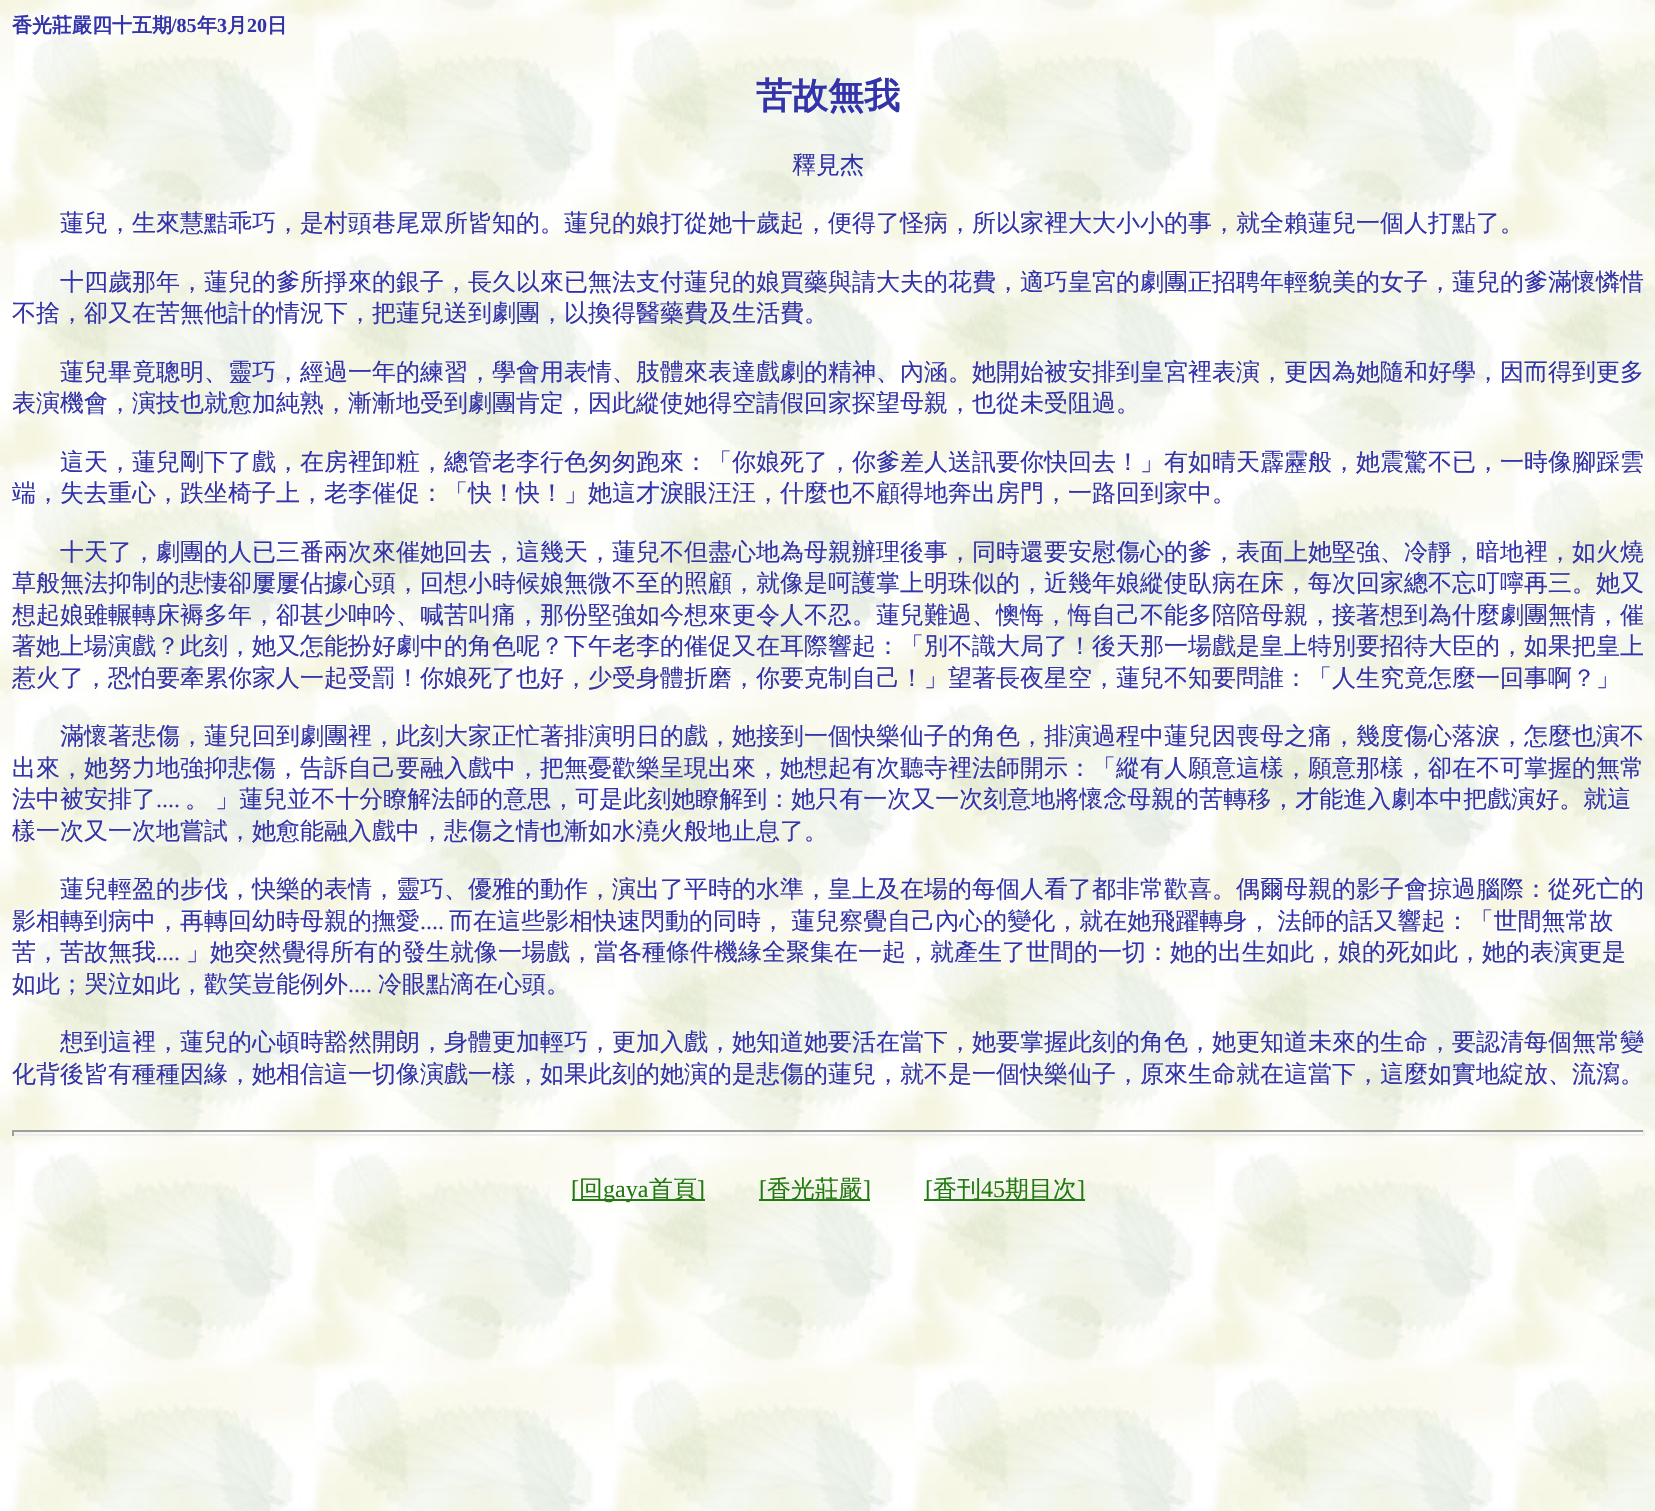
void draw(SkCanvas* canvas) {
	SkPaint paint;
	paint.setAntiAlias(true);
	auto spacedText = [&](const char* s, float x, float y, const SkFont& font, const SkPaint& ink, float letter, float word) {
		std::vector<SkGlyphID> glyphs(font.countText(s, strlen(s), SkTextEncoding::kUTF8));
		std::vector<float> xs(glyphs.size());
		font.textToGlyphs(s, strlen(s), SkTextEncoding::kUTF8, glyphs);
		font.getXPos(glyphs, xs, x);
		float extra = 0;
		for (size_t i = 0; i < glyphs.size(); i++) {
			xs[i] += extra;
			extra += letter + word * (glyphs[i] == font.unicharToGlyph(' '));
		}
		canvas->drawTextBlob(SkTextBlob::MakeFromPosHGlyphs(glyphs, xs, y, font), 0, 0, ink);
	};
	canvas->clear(0xffffffff);
	canvas->drawImageRect(SkImages::DeferredFromEncodedData(SkData::MakeFromFileName("img1.png")), SkRect::MakeXYWH(0, 0, 1655, 1511), SkSamplingOptions());
	SkFont f1(fontMgr->matchFamilyStyle("WenQuanYi Zen Hei", SkFontStyle::Bold()), 20);
	f1.setSubpixel(true);
	paint.setColor(0xff3333aa);
	canvas->drawString("香光莊嚴四十五期", 12, 32, f1, paint);
	SkFont f2(fontMgr->matchFamilyStyle("Liberation Serif", SkFontStyle::Bold()), 20);
	f2.setSubpixel(true);
	canvas->drawString("/85", 171, 32, f2, paint);
	canvas->drawString("年", 197, 32, f1, paint);
	canvas->drawString("3", 217, 32, f2, paint);
	canvas->drawString("月", 227, 32, f1, paint);
	canvas->drawString("20", 247, 32, f2, paint);
	canvas->drawString("日", 267, 32, f1, paint);
	SkFont f3(fontMgr->matchFamilyStyle("WenQuanYi Zen Hei", SkFontStyle::Bold()), 36);
	f3.setSubpixel(true);
	canvas->drawString("苦故無我", 756, 108, f3, paint);
	SkFont f4(fontMgr->matchFamilyStyle("WenQuanYi Zen Hei", SkFontStyle(500, SkFontStyle::kNormal_Width, SkFontStyle::kUpright_Slant)), 24);
	f4.setSubpixel(true);
	canvas->drawString("釋見杰", 792, 173, f4, paint);
	canvas->drawString("蓮兒，生來慧黠乖巧，是村頭巷尾眾所皆知的。蓮兒的娘打從她十歲起，便得了怪病，所以家裡大大小小的事，就全賴蓮兒一個人打點了。", 60, 231, f4, paint);
	canvas->drawString("十四歲那年，蓮兒的爹所掙來的銀子，長久以來已無法支付蓮兒的娘買藥與請大夫的花費，適巧皇宮的劇團正招聘年輕貌美的女子，蓮兒的爹滿懷憐惜", 60, 290, f4, paint);
	canvas->drawString("不捨，卻又在苦無他計的情況下，把蓮兒送到劇團，以換得醫藥費及生活費。", 12, 321, f4, paint);
	canvas->drawString("蓮兒畢竟聰明、靈巧，經過一年的練習，學會用表情、肢體來表達戲劇的精神、內涵。她開始被安排到皇宮裡表演，更因為她隨和好學，因而得到更多", 60, 380, f4, paint);
	canvas->drawString("表演機會，演技也就愈加純熟，漸漸地受到劇團肯定，因此縱使她得空請假回家探望母親，也從未受阻過。", 12, 411, f4, paint);
	canvas->drawString("這天，蓮兒剛下了戲，在房裡卸粧，總管老李行色匆匆跑來：「你娘死了，你爹差人送訊要你快回去！」有如晴天霹靂般，她震驚不已，一時像腳踩雲", 60, 470, f4, paint);
	canvas->drawString("端，失去重心，跌坐椅子上，老李催促：「快！快！」她這才淚眼汪汪，什麼也不顧得地奔出房門，一路回到家中。", 12, 501, f4, paint);
	canvas->drawString("十天了，劇團的人已三番兩次來催她回去，這幾天，蓮兒不但盡心地為母親辦理後事，同時還要安慰傷心的爹，表面上她堅強、冷靜，暗地裡，如火燒", 60, 560, f4, paint);
	canvas->drawString("草般無法抑制的悲悽卻屢屢佔據心頭，回想小時候娘無微不至的照顧，就像是呵護掌上明珠似的，近幾年娘縱使臥病在床，每次回家總不忘叮嚀再三。她又", 12, 591, f4, paint);
	canvas->drawString("想起娘雖輾轉床褥多年，卻甚少呻吟、喊苦叫痛，那份堅強如今想來更令人不忍。蓮兒難過、懊悔，悔自己不能多陪陪母親，接著想到為什麼劇團無情，催", 12, 623, f4, paint);
	canvas->drawString("著她上場演戲？此刻，她又怎能扮好劇中的角色呢？下午老李的催促又在耳際響起：「別不識大局了！後天那一場戲是皇上特別要招待大臣的，如果把皇上", 12, 654, f4, paint);
	canvas->drawString("惹火了，恐怕要牽累你家人一起受罰！你娘死了也好，少受身體折磨，你要克制自己！」望著長夜星空，蓮兒不知要問誰：「人生究竟怎麼一回事啊？」", 12, 686, f4, paint);
	canvas->drawString("滿懷著悲傷，蓮兒回到劇團裡，此刻大家正忙著排演明日的戲，她接到一個快樂仙子的角色，排演過程中蓮兒因喪母之痛，幾度傷心落淚，怎麼也演不", 60, 744, f4, paint);
	canvas->drawString("出來，她努力地強抑悲傷，告訴自己要融入戲中，把無憂歡樂呈現出來，她想起有次聽寺裡法師開示：「縱有人願意這樣，願意那樣，卻在不可掌握的無常", 12, 776, f4, paint);
	canvas->drawString("法中被安排了", 12, 807, f4, paint);
	SkFont f5(fontMgr->matchFamilyStyle("Liberation Serif", SkFontStyle::Normal()), 24);
	f5.setSubpixel(true);
	canvas->drawString("....", 156, 807, f5, paint);
	spacedText("。 」蓮兒並不十分瞭解法師的意思，可是此刻她瞭解到：她只有一次又一次刻意地將懷念母親的苦轉移，才能進入劇本中把戲演好。就這", 185, 807, f4, paint, 0, -1);
	canvas->drawString("樣一次又一次地嘗試，她愈能融入戲中，悲傷之情也漸如水澆火般地止息了。", 12, 839, f4, paint);
	canvas->drawString("蓮兒輕盈的步伐，快樂的表情，靈巧、優雅的動作，演出了平時的水準，皇上及在場的每個人看了都非常歡喜。偶爾母親的影子會掠過腦際：從死亡的", 60, 897, f4, paint);
	canvas->drawString("影相轉到病中，再轉回幼時母親的撫愛", 12, 929, f4, paint);
	canvas->drawString("....", 420, 929, f5, paint);
	spacedText("而在這些影相快速閃動的同時， 蓮兒察覺自己內心的變化，就在她飛躍轉身， 法師的話又響起：「世間無常故", 449, 929, f4, paint, 0, -1);
	canvas->drawString("苦，苦故無我", 12, 960, f4, paint);
	canvas->drawString("....", 156, 960, f5, paint);
	canvas->drawString("」她突然覺得所有的發生就像一場戲，當各種條件機緣全聚集在一起，就產生了世間的一切：她的出生如此，娘的死如此，她的表演更是", 186, 960, f4, paint);
	canvas->drawString("如此；哭泣如此，歡笑豈能例外", 12, 992, f4, paint);
	canvas->drawString("....", 348, 992, f5, paint);
	canvas->drawString("冷眼點滴在心頭。", 378, 992, f4, paint);
	canvas->drawString("想到這裡，蓮兒的心頓時豁然開朗，身體更加輕巧，更加入戲，她知道她要活在當下，她要掌握此刻的角色，她更知道未來的生命，要認清每個無常變", 60, 1050, f4, paint);
	canvas->drawString("化背後皆有種種因緣，她相信這一切像演戲一樣，如果此刻的她演的是悲傷的蓮兒，就不是一個快樂仙子，原來生命就在這當下，這麼如實地綻放、流瀉。", 12, 1082, f4, paint);
	paint.setColor(0xff9f9f9f);
	canvas->drawRect(SkRect::MakeXYWH(12, 1130, 1632, 2), paint);
	paint.setColor(0xffeeeeee);
	canvas->drawRect(SkRect::MakeXYWH(1643, 1130, 2, 6), paint);
	canvas->drawRect(SkRect::MakeXYWH(12, 1134, 1632, 2), paint);
	paint.setColor(0xff9f9f9f);
	canvas->drawRect(SkRect::MakeXYWH(12, 1130, 2, 6), paint);
	paint.setColor(0xff227911);
	canvas->drawRect(SkRect::MakeXYWH(572, 1199, 133, 2), paint);
	canvas->drawString("[", 571, 1197, f5, paint);
	canvas->drawString("回", 579, 1197, f4, paint);
	canvas->drawString("gaya", 603, 1197, f5, paint);
	canvas->drawString("首頁", 649, 1197, f4, paint);
	canvas->drawString("]", 697, 1197, f5, paint);
	canvas->drawRect(SkRect::MakeXYWH(759, 1199, 111, 2), paint);
	canvas->drawString("[", 759, 1197, f5, paint);
	canvas->drawString("香光莊嚴", 767, 1197, f4, paint);
	canvas->drawString("]", 863, 1197, f5, paint);
	canvas->drawRect(SkRect::MakeXYWH(924, 1199, 161, 2), paint);
	canvas->drawString("[", 925, 1197, f5, paint);
	canvas->drawString("香刊", 933, 1197, f4, paint);
	canvas->drawString("45", 981, 1197, f5, paint);
	canvas->drawString("期目次", 1005, 1197, f4, paint);
	canvas->drawString("]", 1077, 1197, f5, paint);
}
